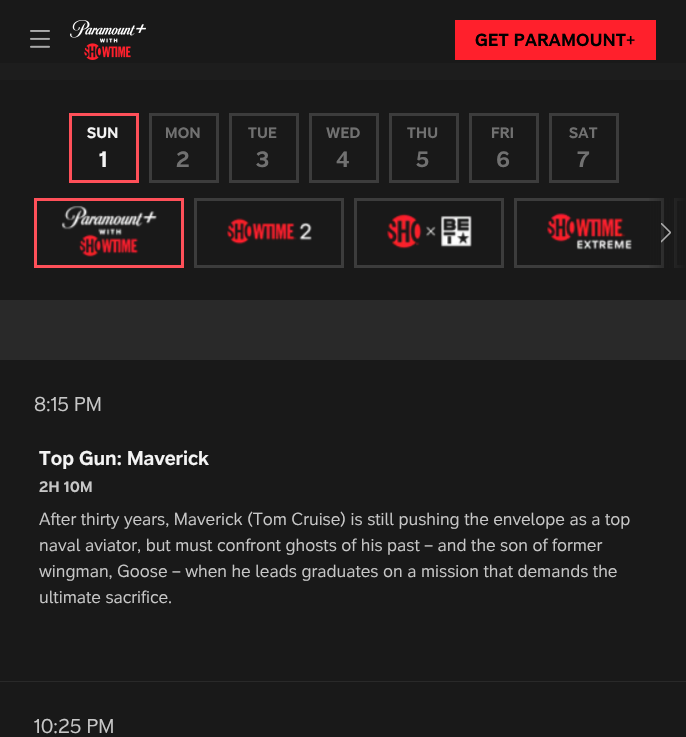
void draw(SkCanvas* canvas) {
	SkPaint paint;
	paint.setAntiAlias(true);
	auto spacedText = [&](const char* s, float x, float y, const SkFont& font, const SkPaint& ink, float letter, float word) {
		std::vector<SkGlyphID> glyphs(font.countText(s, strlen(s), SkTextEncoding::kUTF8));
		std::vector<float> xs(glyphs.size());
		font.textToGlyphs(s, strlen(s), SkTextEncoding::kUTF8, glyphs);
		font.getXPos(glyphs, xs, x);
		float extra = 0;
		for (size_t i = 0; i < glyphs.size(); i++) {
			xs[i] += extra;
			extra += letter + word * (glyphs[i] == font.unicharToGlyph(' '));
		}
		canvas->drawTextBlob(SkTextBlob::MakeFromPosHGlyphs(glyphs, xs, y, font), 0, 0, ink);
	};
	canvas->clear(0xff191919);
	canvas->drawImageRect(SkImages::DeferredFromEncodedData(SkData::MakeFromFileName("img1.png")), SkRect::MakeXYWH(30, 30, 20, 18), SkSamplingOptions());
	canvas->drawImageRect(SkImages::DeferredFromEncodedData(SkData::MakeFromFileName("img2.png")), SkRect::MakeXYWH(70, 20, 76, 40), SkSamplingOptions());
	paint.setColor(0xffff202c);
	canvas->drawRect(SkRect::MakeXYWH(455, 20, 201, 40), paint);
	SkFont f1(fontMgr->matchFamilyStyle("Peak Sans", SkFontStyle::Bold()), 17.5);
	f1.setSubpixel(true);
	paint.setColor(0xff000000);
	spacedText("GET PARAMOUNT+", 475, 46, f1, paint, 0.3, 0);
	paint.setStroke(true);
	paint.setStrokeWidth(3);
	paint.setColor(0xffff5059);
	canvas->drawRect(SkRect::MakeXYWH(70.5, 114.5, 67, 67), paint);
	SkFont f2(fontMgr->matchFamilyStyle("Peak Sans", SkFontStyle::Bold()), 15);
	f2.setSubpixel(true);
	paint.setStroke(false);
	paint.setColor(0xfff4f4f4);
	spacedText("SUN", 87, 138, f2, paint, 0.25, 0);
	SkFont f3(fontMgr->matchFamilyStyle("Peak Sans", SkFontStyle::Bold()), 22);
	f3.setSubpixel(true);
	canvas->drawString("1", 99, 167, f3, paint);
	paint.setStroke(true);
	paint.setColor(0xff3c3c3c);
	canvas->drawRect(SkRect::MakeXYWH(150.5, 114.5, 67, 67), paint);
	paint.setStroke(false);
	paint.setColor(0xff717171);
	spacedText("MON", 165, 138, f2, paint, 0.25, 0);
	canvas->drawString("2", 176, 167, f3, paint);
	paint.setStroke(true);
	paint.setColor(0xff3c3c3c);
	canvas->drawRect(SkRect::MakeXYWH(230.5, 114.5, 67, 67), paint);
	paint.setStroke(false);
	paint.setColor(0xff717171);
	spacedText("TUE", 248, 138, f2, paint, 0.25, 0);
	canvas->drawString("3", 256, 167, f3, paint);
	paint.setStroke(true);
	paint.setColor(0xff3c3c3c);
	canvas->drawRect(SkRect::MakeXYWH(310.5, 114.5, 67, 67), paint);
	paint.setStroke(false);
	paint.setColor(0xff717171);
	spacedText("WED", 326, 138, f2, paint, 0.25, 0);
	canvas->drawString("4", 336, 167, f3, paint);
	paint.setStroke(true);
	paint.setColor(0xff3c3c3c);
	canvas->drawRect(SkRect::MakeXYWH(390.5, 114.5, 67, 67), paint);
	paint.setStroke(false);
	paint.setColor(0xff717171);
	spacedText("THU", 407, 138, f2, paint, 0.25, 0);
	canvas->drawString("5", 416, 167, f3, paint);
	paint.setStroke(true);
	paint.setColor(0xff3c3c3c);
	canvas->drawRect(SkRect::MakeXYWH(470.5, 114.5, 67, 67), paint);
	paint.setStroke(false);
	paint.setColor(0xff717171);
	spacedText("FRI", 491, 138, f2, paint, 0.25, 0);
	canvas->drawString("6", 496, 167, f3, paint);
	paint.setStroke(true);
	paint.setColor(0xff3c3c3c);
	canvas->drawRect(SkRect::MakeXYWH(550.5, 114.5, 67, 67), paint);
	paint.setStroke(false);
	paint.setColor(0xff717171);
	spacedText("SAT", 569, 138, f2, paint, 0.25, 0);
	canvas->drawString("7", 577, 167, f3, paint);
	paint.setStroke(true);
	paint.setColor(0xffff5059);
	canvas->drawRect(SkRect::MakeXYWH(35.5, 199.5, 147, 67), paint);
	canvas->drawImageRect(SkImages::DeferredFromEncodedData(SkData::MakeFromFileName("img3.png")), SkRect::MakeXYWH(61, 205, 96, 52), SkSamplingOptions());
	paint.setColor(0xff3c3c3c);
	canvas->drawRect(SkRect::MakeXYWH(195.5, 199.5, 147, 67), paint);
	canvas->drawImageRect(SkImages::DeferredFromEncodedData(SkData::MakeFromFileName("img4.png")), SkRect::MakeXYWH(227, 218, 85, 27), SkSamplingOptions());
	canvas->drawRect(SkRect::MakeXYWH(355.5, 199.5, 147, 67), paint);
	canvas->drawImageRect(SkImages::DeferredFromEncodedData(SkData::MakeFromFileName("img5.png")), SkRect::MakeXYWH(387, 213, 85, 36), SkSamplingOptions());
	canvas->drawRect(SkRect::MakeXYWH(515.5, 199.5, 147, 67), paint);
	canvas->drawImageRect(SkImages::DeferredFromEncodedData(SkData::MakeFromFileName("img6.png")), SkRect::MakeXYWH(547, 213, 85, 37), SkSamplingOptions());
	canvas->drawRect(SkRect::MakeXYWH(675.5, 199.5, 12, 67), paint);
	paint.setStroke(false);
	{
		const SkColor colors[] = {0xff191919, 0x00191919};
		const float stops[] = {0, 1};
		const SkPoint ends[] = {{686, 233}, {646, 233}};
		paint.setShader(SkGradientShader::MakeLinear(ends, colors, stops, 2, SkTileMode::kClamp));
		paint.setAlpha(255);
	}
	canvas->drawRect(SkRect::MakeXYWH(649, 198, 37, 70), paint);
	canvas->drawImageRect(SkImages::DeferredFromEncodedData(SkData::MakeFromFileName("img7.png")), SkRect::MakeXYWH(661, 223, 10, 20), SkSamplingOptions());
	paint.setShader(nullptr);
	paint.setColor(0xff292929);
	canvas->drawRect(SkRect::MakeXYWH(0, 300, 686, 60), paint);
	paint.setColor(0xff1d1d1d);
	canvas->drawRect(SkRect::MakeXYWH(0, 63, 686, 17), paint);
	SkFont f4(fontMgr->matchFamilyStyle("Peak Sans", SkFontStyle::Normal()), 20);
	f4.setSubpixel(true);
	paint.setColor(0xffc7c7c7);
	canvas->drawString("8:15 PM", 34, 411, f4, paint);
	SkFont f5(fontMgr->matchFamilyStyle("Peak Sans", SkFontStyle::Bold()), 20);
	f5.setSubpixel(true);
	paint.setColor(0xfff4f4f4);
	canvas->drawString("Top Gun: Maverick", 39, 465, f5, paint);
	paint.setColor(0xffc7c7c7);
	spacedText("2H 10M", 39, 492, f2, paint, 0.25, 0);
	SkFont f6(fontMgr->matchFamilyStyle("Peak Sans", SkFontStyle::Normal()), 17.5);
	f6.setSubpixel(true);
	canvas->drawString("After thirty years, Maverick (Tom Cruise) is still pushing the envelope as a top", 39, 525, f6, paint);
	canvas->drawString("naval aviator, but must confront ghosts of his past – and the son of former", 39, 551, f6, paint);
	canvas->drawString("wingman, Goose – when he leads graduates on a mission that demands the", 39, 577, f6, paint);
	canvas->drawString("ultimate sacrifice.", 39, 603, f6, paint);
	paint.setColor(0xff292929);
	canvas->drawRect(SkRect::MakeXYWH(0, 681, 686, 1), paint);
	paint.setColor(0xffc7c7c7);
	canvas->drawString("10:25 PM", 34, 733, f4, paint);
}
